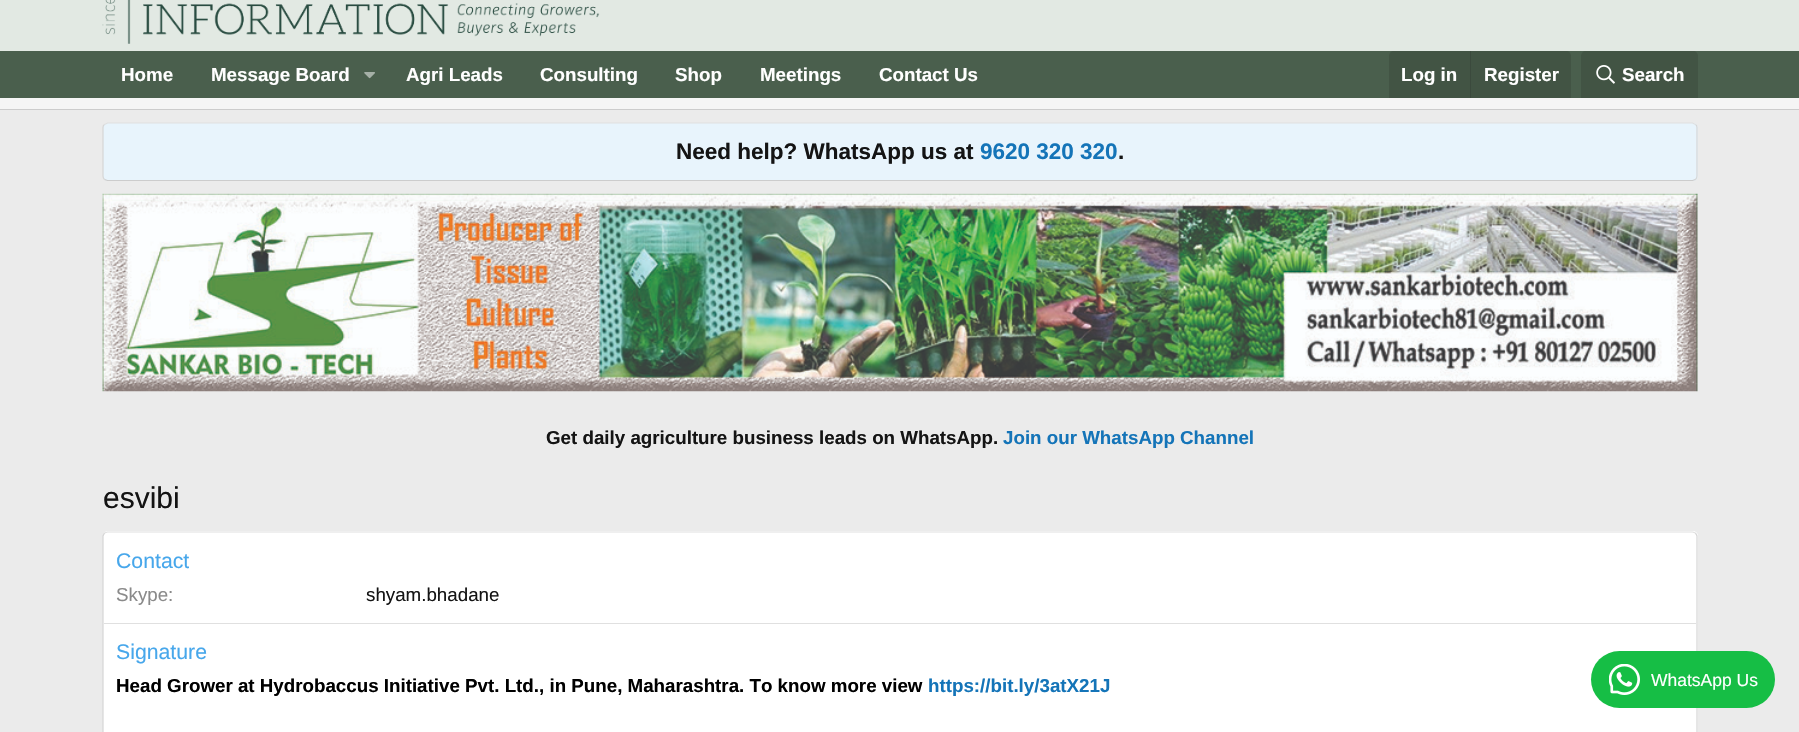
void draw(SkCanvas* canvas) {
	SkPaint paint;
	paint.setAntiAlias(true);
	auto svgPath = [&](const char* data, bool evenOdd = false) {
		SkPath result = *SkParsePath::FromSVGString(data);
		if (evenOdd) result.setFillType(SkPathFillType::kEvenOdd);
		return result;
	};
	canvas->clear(0xffebebeb);
	paint.setColor(0xffe2e9e3);
	canvas->drawRect(SkRect::MakeXYWH(0, 0, 1799, 51), paint);
	canvas->drawImageRect(SkImages::DeferredFromEncodedData(SkData::MakeFromFileName("img1.png")), SkRect::MakeXYWH(102, 0, 498, 44), SkSamplingOptions());
	paint.setColor(0xff4a5f4d);
	canvas->drawRect(SkRect::MakeXYWH(0, 51, 1799, 47), paint);
	SkFont f1(fontMgr->matchFamilyStyle("Liberation Sans", SkFontStyle::Bold()), 18.75);
	f1.setSubpixel(true);
	paint.setColor(0xffffffff);
	canvas->drawString("Home", 121, 81, f1, paint);
	canvas->drawString("Message Board", 211, 81, f1, paint);
	canvas->drawImageRect(SkImages::DeferredFromEncodedData(SkData::MakeFromFileName("img2.png")), SkRect::MakeXYWH(364, 72, 11, 7), SkSamplingOptions());
	canvas->drawString("Agri Leads", 406, 81, f1, paint);
	canvas->drawString("Consulting", 540, 81, f1, paint);
	canvas->drawString("Shop", 675, 81, f1, paint);
	canvas->drawString("Meetings", 760, 81, f1, paint);
	canvas->drawString("Contact Us", 879, 81, f1, paint);
	paint.setColor(0xff425444);
	canvas->drawPath(svgPath("M1394 51H1566C1569 51 1571 53 1571 56V98H1389V56C1389 53 1391 51 1394 51Z"), paint);
	paint.setColor(0xffffffff);
	canvas->drawString("Log in", 1401, 81, f1, paint);
	paint.setColor(0xff3b4a3d);
	canvas->drawRect(SkRect::MakeXYWH(1470, 51, 1, 47), paint);
	paint.setColor(0xffffffff);
	canvas->drawString("Register", 1484, 81, f1, paint);
	paint.setColor(0xff425444);
	canvas->drawPath(svgPath("M1586 51H1693C1696 51 1698 53 1698 56V98H1581V56C1581 53 1583 51 1586 51Z"), paint);
	canvas->drawImageRect(SkImages::DeferredFromEncodedData(SkData::MakeFromFileName("img3.png")), SkRect::MakeXYWH(1596, 65, 19, 19), SkSamplingOptions());
	paint.setColor(0xffffffff);
	canvas->drawString("Search", 1622, 81, f1, paint);
	paint.setColor(0xfff5f5f5);
	canvas->drawRect(SkRect::MakeXYWH(0, 98, 1799, 11), paint);
	paint.setColor(0xffcccccc);
	canvas->drawRect(SkRect::MakeXYWH(0, 109, 1799, 1), paint);
	paint.setColor(0xffe8f4fc);
	canvas->drawRoundRect(SkRect::MakeXYWH(103, 123, 1595, 58), 5, 5, paint);
	paint.setStroke(true);
	paint.setStrokeWidth(1.2);
	paint.setColor(0xffe0e0e0);
	canvas->drawPath(svgPath("M104.5 124.5L107.5 123H1692.5L1695.5 124.5"), paint);
	paint.setColor(0xffd6d6d6);
	canvas->drawPath(svgPath("M1695.5 124.5C1696.5 125 1697 126.5 1697 127.5V176C1697 177.5 1696.5 178.5 1695.5 179.5"), paint);
	paint.setColor(0xffcccccc);
	canvas->drawPath(svgPath("M1695.5 179.5L1692.5 180.5H107.5L104.5 179.5"), paint);
	paint.setColor(0xffd6d6d6);
	canvas->drawPath(svgPath("M104.5 179.5C103.5 178.5 103 177.5 103 176V127.5C103 126.5 103.5 125 104.5 124.5"), paint);
	SkFont f2(fontMgr->matchFamilyStyle("Liberation Sans", SkFontStyle::Bold()), 22.5);
	f2.setSubpixel(true);
	paint.setStroke(false);
	paint.setColor(0xff141414);
	canvas->drawString("Need help? WhatsApp us at", 676, 159, f2, paint);
	paint.setColor(0xff1474b8);
	canvas->drawString("9620 320 320", 980, 159, f2, paint);
	paint.setColor(0xff141414);
	canvas->drawString(".", 1118, 159, f2, paint);
	canvas->drawImageRect(SkImages::DeferredFromEncodedData(SkData::MakeFromFileName("img4.png")), SkRect::MakeXYWH(102, 193, 1596, 199), SkSamplingOptions());
	canvas->drawString("Get daily agriculture business leads on WhatsApp.", 546, 444, f1, paint);
	paint.setColor(0xff1474b8);
	canvas->drawString("Join our WhatsApp Channel", 1003, 444, f1, paint);
	SkFont f3(fontMgr->matchFamilyStyle("Liberation Sans", SkFontStyle::Normal()), 30);
	f3.setSubpixel(true);
	paint.setColor(0xff141414);
	canvas->drawString("esvibi", 103, 508, f3, paint);
	paint.setColor(0xffffffff);
	canvas->drawRoundRect(SkRect::MakeXYWH(103, 531, 1595, 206), 5, 5, paint);
	paint.setStroke(true);
	paint.setColor(0xffe0e0e0);
	canvas->drawPath(svgPath("M104.5 533L107.5 532H1692.5L1695.5 533"), paint);
	paint.setColor(0xffd6d6d6);
	canvas->drawPath(svgPath("M1695.5 533L1697 536V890L1695.5 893"), paint);
	canvas->drawPath(svgPath("M104.5 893L103 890V536L104.5 533"), paint);
	SkFont f4(fontMgr->matchFamilyStyle("Liberation Sans", SkFontStyle::Normal()), 21.25);
	f4.setSubpixel(true);
	paint.setStroke(false);
	paint.setColor(0xff47a7eb);
	canvas->drawString("Contact", 116, 568, f4, paint);
	SkFont f5(fontMgr->matchFamilyStyle("Liberation Sans", SkFontStyle::Normal()), 18.75);
	f5.setSubpixel(true);
	paint.setColor(0xff8a8a8a);
	canvas->drawString("Skype:", 116, 601, f5, paint);
	paint.setColor(0xff141414);
	canvas->drawString("shyam.bhadane", 366, 601, f5, paint);
	paint.setColor(0xffe0e0e0);
	canvas->drawRect(SkRect::MakeXYWH(104, 623, 1592, 1), paint);
	paint.setColor(0xff47a7eb);
	canvas->drawString("Signature", 116, 659, f4, paint);
	paint.setColor(0xff000000);
	canvas->drawString("Head Grower at Hydrobaccus Initiative Pvt. Ltd., in Pune, Maharashtra. To know more view", 116, 692, f1, paint);
	paint.setColor(0xff1474b8);
	canvas->drawString("https://bit.ly/3atX21J", 928, 692, f1, paint);
	paint.setColor(0xff16be45);
	canvas->drawRoundRect(SkRect::MakeXYWH(1591, 651, 184, 57), 28.5, 28.5, paint);
	canvas->drawImageRect(SkImages::DeferredFromEncodedData(SkData::MakeFromFileName("img5.png")), SkRect::MakeXYWH(1609, 664, 31, 31), SkSamplingOptions());
	SkFont f6(fontMgr->matchFamilyStyle("Liberation Sans", SkFontStyle::Normal()), 17.5);
	f6.setSubpixel(true);
	paint.setColor(0xffffffff);
	canvas->drawString("WhatsApp Us", 1651, 686, f6, paint);
}
